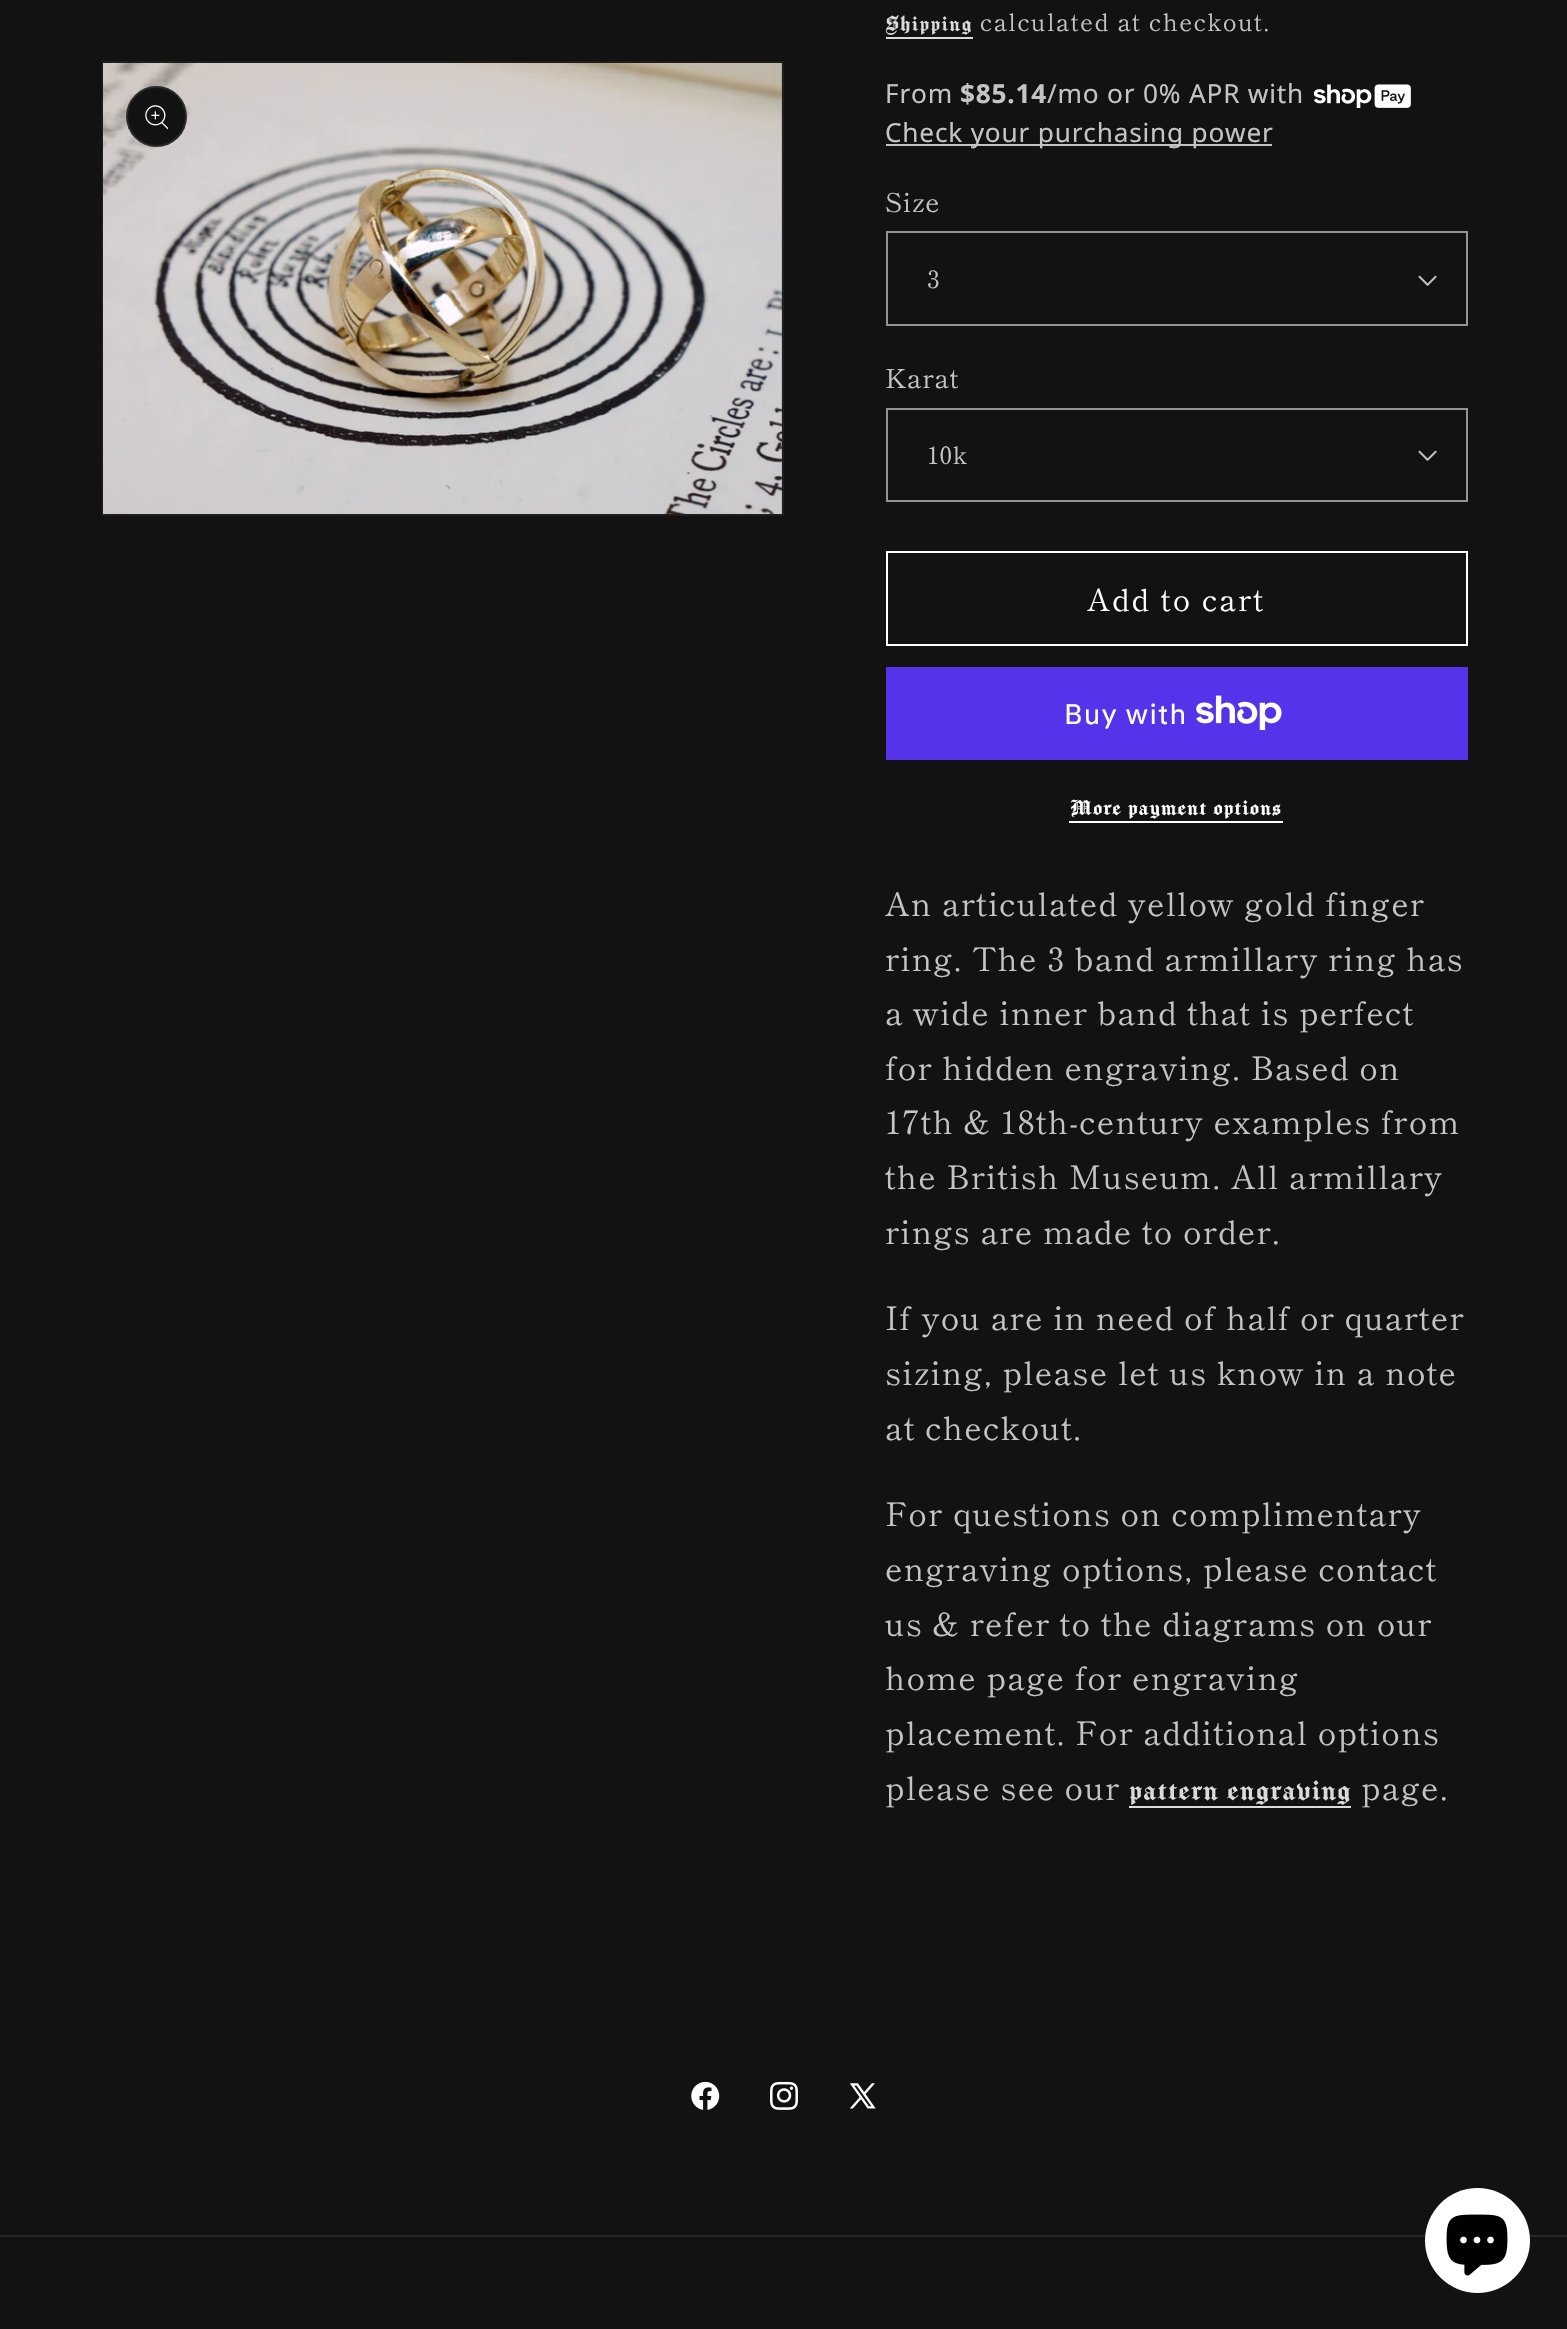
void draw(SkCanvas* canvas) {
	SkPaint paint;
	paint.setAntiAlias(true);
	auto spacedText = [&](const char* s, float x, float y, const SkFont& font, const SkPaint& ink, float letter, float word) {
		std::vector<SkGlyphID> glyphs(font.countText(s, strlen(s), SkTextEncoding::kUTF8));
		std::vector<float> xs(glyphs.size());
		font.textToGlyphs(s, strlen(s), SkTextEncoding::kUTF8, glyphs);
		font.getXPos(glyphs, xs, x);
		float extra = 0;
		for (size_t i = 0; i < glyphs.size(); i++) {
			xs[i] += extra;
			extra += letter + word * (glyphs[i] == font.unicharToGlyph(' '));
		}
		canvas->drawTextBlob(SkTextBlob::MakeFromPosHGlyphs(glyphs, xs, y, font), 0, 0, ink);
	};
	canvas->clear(0xff121212);
	paint.setStroke(true);
	paint.setStrokeWidth(2);
	paint.setColor(0xff1e1e1e);
	canvas->drawRect(SkRect::MakeXYWH(103, 62, 680, 453), paint);
	canvas->drawImageRect(SkImages::DeferredFromEncodedData(SkData::MakeFromFileName("img1.png")), SkRect::MakeXYWH(103, 63, 679, 451), SkSamplingOptions());
	paint.setStroke(false);
	paint.setColor(0xff121212);
	canvas->drawCircle(156.5, 116.5, 30.5, paint);
	paint.setStroke(true);
	paint.setColor(0x1affffff);
	canvas->drawCircle(156.5, 116.5, 29.5, paint);
	canvas->drawImageRect(SkImages::DeferredFromEncodedData(SkData::MakeFromFileName("img2.png")), SkRect::MakeXYWH(145, 105, 23, 25), SkSamplingOptions());
	SkFont f1(fontMgr->matchFamilyStyle("Manufacturing Consent", SkFontStyle::Normal()), 24.1);
	f1.setSubpixel(true);
	paint.setStroke(false);
	paint.setColor(0xffdbdbdb);
	spacedText("Shipping", 885, 31, f1, paint, 1.4, 0);
	canvas->drawRect(SkRect::MakeXYWH(886, 37, 87, 2), paint);
	SkFont f2(fontMgr->matchFamilyStyle("Shippori Mincho", SkFontStyle::Normal()), 24.1);
	f2.setSubpixel(true);
	paint.setColor(0xffc4c4c4);
	spacedText("calculated at checkout.", 980, 31, f2, paint, 1.4, 0);
	SkFont f3(fontMgr->matchFamilyStyle("Noto Sans", SkFontStyle::Normal()), 26.2);
	f3.setSubpixel(true);
	spacedText("From", 885, 103, f3, paint, 0.8, 0);
	SkFont f4(fontMgr->matchFamilyStyle("Noto Sans", SkFontStyle::Bold()), 26.2);
	f4.setSubpixel(true);
	spacedText("$85.14", 960, 103, f4, paint, 0.8, 0);
	spacedText("/mo or 0% APR with", 1047, 103, f3, paint, 0.8, 0);
	canvas->drawImageRect(SkImages::DeferredFromEncodedData(SkData::MakeFromFileName("img3.png")), SkRect::MakeXYWH(1313, 84, 98, 24), SkSamplingOptions());
	canvas->drawRect(SkRect::MakeXYWH(886, 144, 386, 2), paint);
	spacedText("Check your purchasing power", 885, 142, f3, paint, 0.8, 0);
	SkFont f5(fontMgr->matchFamilyStyle("Shippori Mincho", SkFontStyle::Normal()), 26.2);
	f5.setSubpixel(true);
	spacedText("Size", 885, 212, f5, paint, 0.8, 0);
	canvas->drawImageRect(SkImages::DeferredFromEncodedData(SkData::MakeFromFileName("img4.png")), SkRect::MakeXYWH(1418, 275, 19, 11), SkSamplingOptions());
	paint.setStroke(true);
	paint.setColor(0xff949494);
	canvas->drawRect(SkRect::MakeXYWH(887, 232, 580, 93), paint);
	paint.setStroke(false);
	paint.setColor(0xffc4c4c4);
	spacedText("3", 927, 288, f2, paint, 0.8, 0);
	spacedText("Karat", 885, 388, f5, paint, 0.8, 0);
	canvas->drawImageRect(SkImages::DeferredFromEncodedData(SkData::MakeFromFileName("img4.png")), SkRect::MakeXYWH(1418, 450, 19, 11), SkSamplingOptions());
	paint.setStroke(true);
	paint.setColor(0xff949494);
	canvas->drawRect(SkRect::MakeXYWH(887, 409, 580, 92), paint);
	paint.setStroke(false);
	paint.setColor(0xffc4c4c4);
	spacedText("10k", 927, 464, f2, paint, 0.8, 0);
	paint.setStroke(true);
	paint.setColor(0xffffffff);
	canvas->drawRect(SkRect::MakeXYWH(887, 552, 580, 93), paint);
	SkFont f6(fontMgr->matchFamilyStyle("Shippori Mincho", SkFontStyle::Normal()), 30.25);
	f6.setSubpixel(true);
	paint.setStroke(false);
	spacedText("Add to cart", 1087, 611, f6, paint, 2, 0);
	paint.setColor(0xff5433eb);
	canvas->drawRect(SkRect::MakeXYWH(886, 667, 582, 93), paint);
	SkFont f7(fontMgr->matchFamilyStyle("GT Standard", SkFontStyle::Normal()), 28);
	f7.setSubpixel(true);
	paint.setColor(0xffffffff);
	spacedText("Buy with", 1064, 724, f7, paint, 1.2, 0);
	canvas->drawImageRect(SkImages::DeferredFromEncodedData(SkData::MakeFromFileName("img5.png")), SkRect::MakeXYWH(1196, 695, 86, 35), SkSamplingOptions());
	spacedText("More payment options", 1070, 815, f1, paint, 1, 0);
	canvas->drawRect(SkRect::MakeXYWH(1069, 821, 214, 2), paint);
	SkFont f8(fontMgr->matchFamilyStyle("Shippori Mincho", SkFontStyle::Normal()), 32.25);
	f8.setSubpixel(true);
	paint.setColor(0xffc4c4c4);
	spacedText("An articulated yellow gold finger", 885, 916, f8, paint, 1.2, 0);
	spacedText("ring. The 3 band armillary ring has", 885, 971, f8, paint, 1.2, 0);
	spacedText("a wide inner band that is perfect", 885, 1025, f8, paint, 1.2, 0);
	spacedText("for hidden engraving. Based on", 885, 1080, f8, paint, 1.2, 0);
	spacedText("17th & 18th-century examples from", 885, 1134, f8, paint, 1.2, 0);
	spacedText("the British Museum. All armillary", 885, 1189, f8, paint, 1.2, 0);
	spacedText("rings are made to order.", 885, 1244, f8, paint, 1.2, 0);
	spacedText("If you are in need of half or quarter", 885, 1330, f8, paint, 1.2, 0);
	spacedText("sizing, please let us know in a note", 885, 1385, f8, paint, 1.2, 0);
	spacedText("at checkout.", 885, 1440, f8, paint, 1.2, 0);
	spacedText("For questions on complimentary", 885, 1526, f8, paint, 1.2, 0);
	spacedText("engraving options, please contact", 885, 1581, f8, paint, 1.2, 0);
	spacedText("us & refer to the diagrams on our", 885, 1636, f8, paint, 1.2, 0);
	spacedText("home page for engraving", 885, 1690, f8, paint, 1.2, 0);
	spacedText("placement. For additional options", 885, 1745, f8, paint, 1.2, 0);
	spacedText("please see our", 885, 1800, f8, paint, 1.2, 0);
	SkFont f9(fontMgr->matchFamilyStyle("Manufacturing Consent", SkFontStyle::Normal()), 32.25);
	f9.setSubpixel(true);
	paint.setColor(0xffdbdbdb);
	spacedText("pattern engraving", 1129, 1800, f9, paint, 1.2, 0);
	canvas->drawRect(SkRect::MakeXYWH(1129, 1806, 222, 2), paint);
	paint.setColor(0xffc4c4c4);
	spacedText("page.", 1361, 1800, f8, paint, 1.2, 0);
	canvas->drawImageRect(SkImages::DeferredFromEncodedData(SkData::MakeFromFileName("img6.png")), SkRect::MakeXYWH(691, 2081, 29, 29), SkSamplingOptions());
	canvas->drawImageRect(SkImages::DeferredFromEncodedData(SkData::MakeFromFileName("img7.png")), SkRect::MakeXYWH(770, 2081, 28, 29), SkSamplingOptions());
	canvas->drawImageRect(SkImages::DeferredFromEncodedData(SkData::MakeFromFileName("img8.png")), SkRect::MakeXYWH(849, 2083, 27, 26), SkSamplingOptions());
	paint.setColor(0xff252525);
	canvas->drawRect(SkRect::MakeXYWH(0, 2235, 1567, 2), paint);
	paint.setColor(0xffffffff);
	canvas->drawCircle(1477.5, 2240.5, 52.5, paint);
	canvas->drawImageRect(SkImages::DeferredFromEncodedData(SkData::MakeFromFileName("img9.png")), SkRect::MakeXYWH(1446, 2214, 62, 62), SkSamplingOptions());
}
